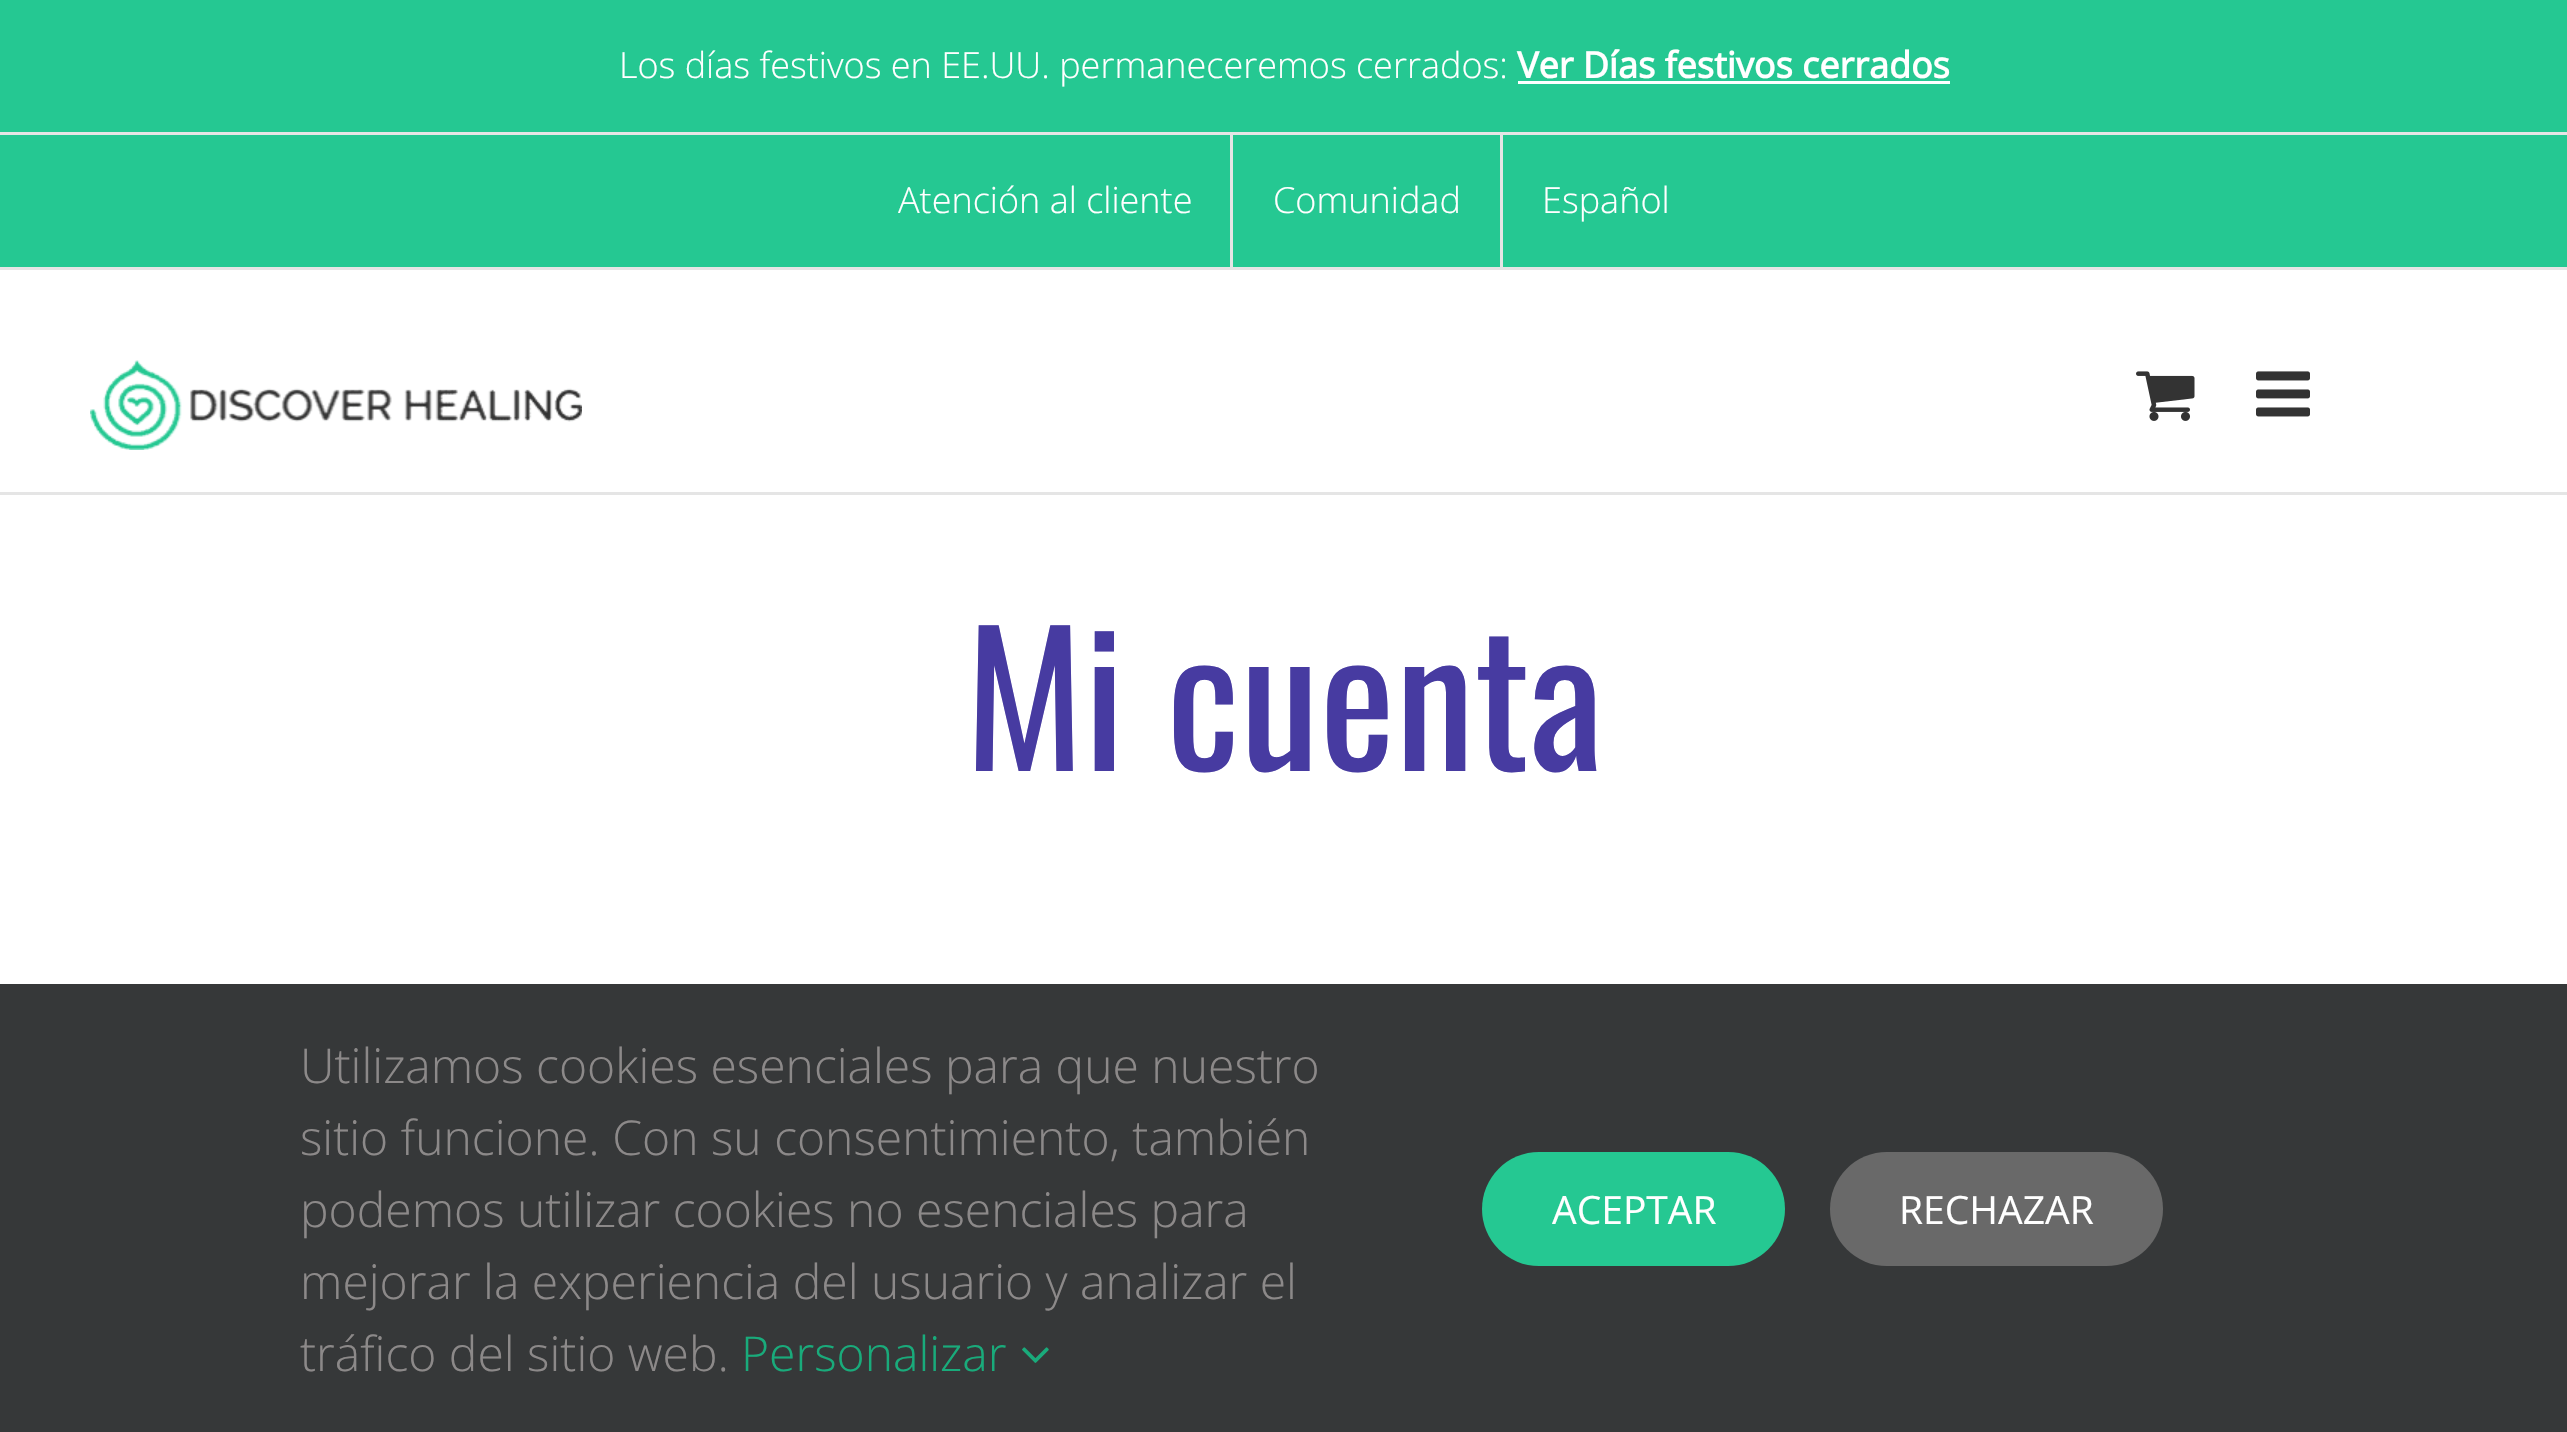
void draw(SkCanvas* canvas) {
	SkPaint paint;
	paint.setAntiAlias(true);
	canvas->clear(0xffffffff);
	paint.setColor(0xff25c892);
	canvas->drawRect(SkRect::MakeXYWH(0, 0, 2567, 267), paint);
	paint.setColor(0xffe5e5e5);
	canvas->drawRect(SkRect::MakeXYWH(0, 267, 2567, 3), paint);
	canvas->drawRect(SkRect::MakeXYWH(0, 132, 2567, 3), paint);
	SkFont f1(fontMgr->matchFamilyStyle("Open Sans", SkFontStyle(300, SkFontStyle::kNormal_Width, SkFontStyle::kUpright_Slant)), 36);
	f1.setSubpixel(true);
	paint.setColor(0xffffffff);
	canvas->drawString("Los días festivos en EE.UU. permaneceremos cerrados:", 619, 78, f1, paint);
	SkFont f2(fontMgr->matchFamilyStyle("Open Sans", SkFontStyle::Bold()), 36);
	f2.setSubpixel(true);
	canvas->drawString("Ver Días festivos cerrados", 1517, 78, f2, paint);
	canvas->drawRect(SkRect::MakeXYWH(1518, 81, 432, 3), paint);
	canvas->drawString("Atención al cliente", 898, 213, f1, paint);
	paint.setColor(0xffe5e5e5);
	canvas->drawRect(SkRect::MakeXYWH(1230, 135, 3, 132), paint);
	paint.setColor(0xffffffff);
	canvas->drawString("Comunidad", 1273, 213, f1, paint);
	paint.setColor(0xffe5e5e5);
	canvas->drawRect(SkRect::MakeXYWH(1500, 135, 3, 132), paint);
	paint.setColor(0xffffffff);
	canvas->drawString("Español", 1542, 213, f1, paint);
	paint.setColor(0xffe5e5e5);
	canvas->drawRect(SkRect::MakeXYWH(0, 492, 2567, 3), paint);
	canvas->drawImageRect(SkImages::DeferredFromEncodedData(SkData::MakeFromFileName("img1.png")), SkRect::MakeXYWH(90, 360, 492, 90), SkSamplingOptions());
	canvas->drawImageRect(SkImages::DeferredFromEncodedData(SkData::MakeFromFileName("img2.png")), SkRect::MakeXYWH(2136, 371, 59, 50), SkSamplingOptions());
	canvas->drawImageRect(SkImages::DeferredFromEncodedData(SkData::MakeFromFileName("img3.png")), SkRect::MakeXYWH(2256, 371, 54, 46), SkSamplingOptions());
	SkFont f3(fontMgr->matchFamilyStyle("Oswald", SkFontStyle::Normal()), 180);
	f3.setSubpixel(true);
	paint.setColor(0xff473ba1);
	canvas->drawString("Mi cuenta", 965, 771, f3, paint);
	paint.setColor(0xff363839);
	canvas->drawRect(SkRect::MakeXYWH(0, 984, 2567, 448), paint);
	SkFont f4(fontMgr->matchFamilyStyle("Open Sans", SkFontStyle(300, SkFontStyle::kNormal_Width, SkFontStyle::kUpright_Slant)), 48);
	f4.setSubpixel(true);
	paint.setColor(0xff8c8989);
	canvas->drawString("Utilizamos cookies esenciales para que nuestro", 300, 1083, f4, paint);
	canvas->drawString("sitio funcione. Con su consentimiento, también", 300, 1155, f4, paint);
	canvas->drawString("podemos utilizar cookies no esenciales para", 300, 1227, f4, paint);
	canvas->drawString("mejorar la experiencia del usuario y analizar el", 300, 1299, f4, paint);
	canvas->drawString("tráfico del sitio web.", 300, 1371, f4, paint);
	paint.setColor(0xff19ab7b);
	canvas->drawString("Personalizar", 741, 1371, f4, paint);
	canvas->drawImageRect(SkImages::DeferredFromEncodedData(SkData::MakeFromFileName("img4.png")), SkRect::MakeXYWH(1022, 1347, 27, 16), SkSamplingOptions());
	paint.setColor(0xff25c892);
	canvas->drawRoundRect(SkRect::MakeXYWH(1482, 1152, 303, 114), 57, 57, paint);
	SkFont f5(fontMgr->matchFamilyStyle("Open Sans", SkFontStyle::Normal()), 39);
	f5.setSubpixel(true);
	paint.setColor(0xffffffff);
	canvas->drawString("ACEPTAR", 1552, 1224, f5, paint);
	paint.setColor(0xff696969);
	canvas->drawRoundRect(SkRect::MakeXYWH(1830, 1152, 333, 114), 57, 57, paint);
	paint.setColor(0xffffffff);
	canvas->drawString("RECHAZAR", 1899, 1224, f5, paint);
}
